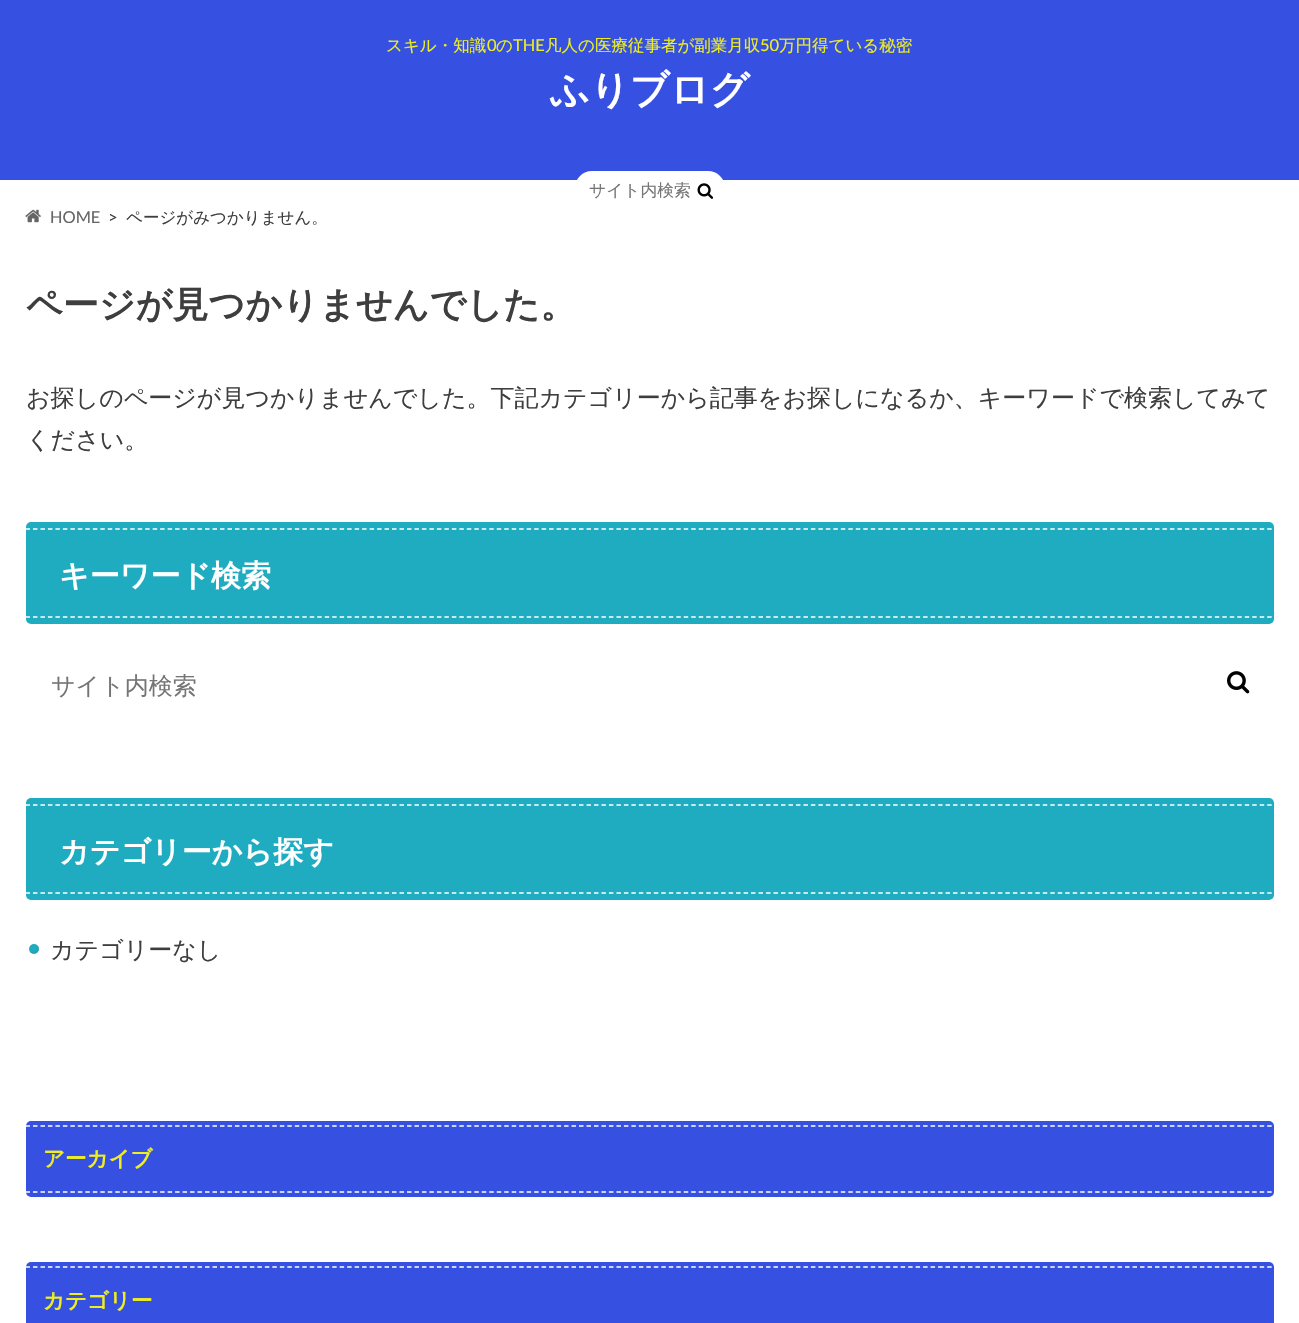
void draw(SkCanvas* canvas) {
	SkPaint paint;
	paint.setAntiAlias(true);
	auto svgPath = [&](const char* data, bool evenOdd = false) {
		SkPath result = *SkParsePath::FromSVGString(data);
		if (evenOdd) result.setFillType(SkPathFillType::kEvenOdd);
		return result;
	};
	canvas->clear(0xffffffff);
	paint.setColor(0xff3650e2);
	canvas->drawRect(SkRect::MakeXYWH(0, 0, 1299, 180), paint);
	SkFont f1(fontMgr->matchFamilyStyle("WenQuanYi Zen Hei", SkFontStyle(500, SkFontStyle::kNormal_Width, SkFontStyle::kUpright_Slant)), 16.5);
	f1.setSubpixel(true);
	paint.setColor(0xffeeee22);
	canvas->drawString("スキル・知識", 386, 51, f1, paint);
	SkFont f2(fontMgr->matchFamilyStyle("Lato", SkFontStyle::Normal()), 16.5);
	f2.setSubpixel(true);
	canvas->drawString("0", 487, 51, f2, paint);
	canvas->drawString("の", 496, 51, f1, paint);
	canvas->drawString("THE", 513, 51, f2, paint);
	canvas->drawString("凡人の医療従事者が副業月収", 545, 51, f1, paint);
	canvas->drawString("50", 760, 51, f2, paint);
	canvas->drawString("万円得ている秘密", 779, 51, f1, paint);
	SkFont f3(fontMgr->matchFamilyStyle("WenQuanYi Zen Hei", SkFontStyle::Bold()), 39);
	f3.setSubpixel(true);
	paint.setColor(0xffffffff);
	canvas->drawString("ふりブログ", 550, 103, f3, paint);
	canvas->drawRoundRect(SkRect::MakeXYWH(575, 171, 150, 39), 17, 17, paint);
	SkFont f4(fontMgr->matchFamilyStyle("WenQuanYi Zen Hei", SkFontStyle(500, SkFontStyle::kNormal_Width, SkFontStyle::kUpright_Slant)), 16.75);
	f4.setSubpixel(true);
	paint.setColor(0xff757575);
	canvas->drawString("サイト内検索", 589, 196, f4, paint);
	canvas->drawImageRect(SkImages::DeferredFromEncodedData(SkData::MakeFromFileName("img1.png")), SkRect::MakeXYWH(697, 183, 17, 16), SkSamplingOptions());
	canvas->drawImageRect(SkImages::DeferredFromEncodedData(SkData::MakeFromFileName("img2.png")), SkRect::MakeXYWH(25, 209, 16, 14), SkSamplingOptions());
	paint.setColor(0xff666666);
	canvas->drawString("HOME", 50, 223, f2, paint);
	paint.setColor(0xff3e3e3e);
	canvas->drawString(">", 108, 223, f2, paint);
	canvas->drawString("ページがみつかりません。", 126, 223, f1, paint);
	SkFont f5(fontMgr->matchFamilyStyle("WenQuanYi Zen Hei", SkFontStyle::Bold()), 36);
	f5.setSubpixel(true);
	canvas->drawString("ページが見つかりませんでした。", 26, 317, f5, paint);
	SkFont f6(fontMgr->matchFamilyStyle("WenQuanYi Zen Hei", SkFontStyle(500, SkFontStyle::kNormal_Width, SkFontStyle::kUpright_Slant)), 24);
	f6.setSubpixel(true);
	canvas->drawString("お探しのページが見つかりませんでした。下記カテゴリーから記事をお探しになるか、キーワードで検索してみて", 26, 406, f6, paint);
	canvas->drawString("ください。", 26, 448, f6, paint);
	paint.setColor(0xff1facc1);
	canvas->drawRoundRect(SkRect::MakeXYWH(26, 522, 1248, 102), 5, 5, paint);
	paint.setStroke(true);
	paint.setStrokeWidth(1.5);
	paint.setColor(0xffffffff);
	paint.setPathEffect(SkDashPathEffect::Make({{4.5f, 2.98f}}, 0));
	canvas->drawPath(svgPath("M25.5 529H1273.5"), paint);
	paint.setPathEffect(nullptr);
	SkFont f7(fontMgr->matchFamilyStyle("WenQuanYi Zen Hei", SkFontStyle::Bold()), 30);
	f7.setSubpixel(true);
	paint.setStroke(false);
	canvas->drawString("キーワード検索", 59, 586, f7, paint);
	paint.setStroke(true);
	paint.setPathEffect(SkDashPathEffect::Make({{4.5f, 2.98f}}, 0));
	canvas->drawPath(svgPath("M25.5 617H1273.5"), paint);
	paint.setPathEffect(nullptr);
	paint.setStroke(false);
	paint.setColor(0xff757575);
	canvas->drawString("サイト内検索", 51, 694, f6, paint);
	canvas->drawImageRect(SkImages::DeferredFromEncodedData(SkData::MakeFromFileName("img3.png")), SkRect::MakeXYWH(1227, 671, 23, 23), SkSamplingOptions());
	paint.setColor(0xff1facc1);
	canvas->drawRoundRect(SkRect::MakeXYWH(26, 798, 1248, 102), 5, 5, paint);
	paint.setStroke(true);
	paint.setColor(0xffffffff);
	paint.setPathEffect(SkDashPathEffect::Make({{4.5f, 2.98f}}, 0));
	canvas->drawPath(svgPath("M25.5 805H1273.5"), paint);
	paint.setPathEffect(nullptr);
	paint.setStroke(false);
	canvas->drawString("カテゴリーから探す", 59, 862, f7, paint);
	paint.setStroke(true);
	paint.setPathEffect(SkDashPathEffect::Make({{4.5f, 2.98f}}, 0));
	canvas->drawPath(svgPath("M25.5 893H1273.5"), paint);
	paint.setPathEffect(nullptr);
	paint.setStroke(false);
	paint.setColor(0xff1facc1);
	canvas->drawCircle(34, 949, 5, paint);
	paint.setColor(0x26616161);
	canvas->drawPath(svgPath("M29.5 951.5C34 958.5 43.5 949.5 37 945C39 949.5 34 953.5 29.5 951.5Z"), paint);
	paint.setColor(0xff3e3e3e);
	canvas->drawString("カテゴリーなし", 50, 958, f6, paint);
	paint.setColor(0xff3650e2);
	canvas->drawRoundRect(SkRect::MakeXYWH(26, 1121, 1248, 76), 5, 5, paint);
	paint.setStroke(true);
	paint.setColor(0xffffffff);
	paint.setPathEffect(SkDashPathEffect::Make({{4.5f, 2.98f}}, 0));
	canvas->drawPath(svgPath("M25.5 1126H1273.5"), paint);
	paint.setPathEffect(nullptr);
	paint.setPathEffect(SkDashPathEffect::Make({{4.5f, 2.98f}}, 0));
	canvas->drawPath(svgPath("M25.5 1192H1273.5"), paint);
	paint.setPathEffect(nullptr);
	SkFont f8(fontMgr->matchFamilyStyle("WenQuanYi Zen Hei", SkFontStyle::Bold()), 21.5);
	f8.setSubpixel(true);
	paint.setStroke(false);
	paint.setColor(0xffeeee22);
	canvas->drawString("アーカイブ", 43, 1166, f8, paint);
	paint.setColor(0xff3650e2);
	canvas->drawRoundRect(SkRect::MakeXYWH(26, 1262, 1248, 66), 5, 5, paint);
	paint.setStroke(true);
	paint.setColor(0xffffffff);
	paint.setPathEffect(SkDashPathEffect::Make({{4.5f, 2.98f}}, 0));
	canvas->drawPath(svgPath("M25.5 1267H1273.5"), paint);
	paint.setPathEffect(nullptr);
	paint.setStroke(false);
	paint.setColor(0xffeeee22);
	canvas->drawString("カテゴリー", 43, 1308, f8, paint);
}
